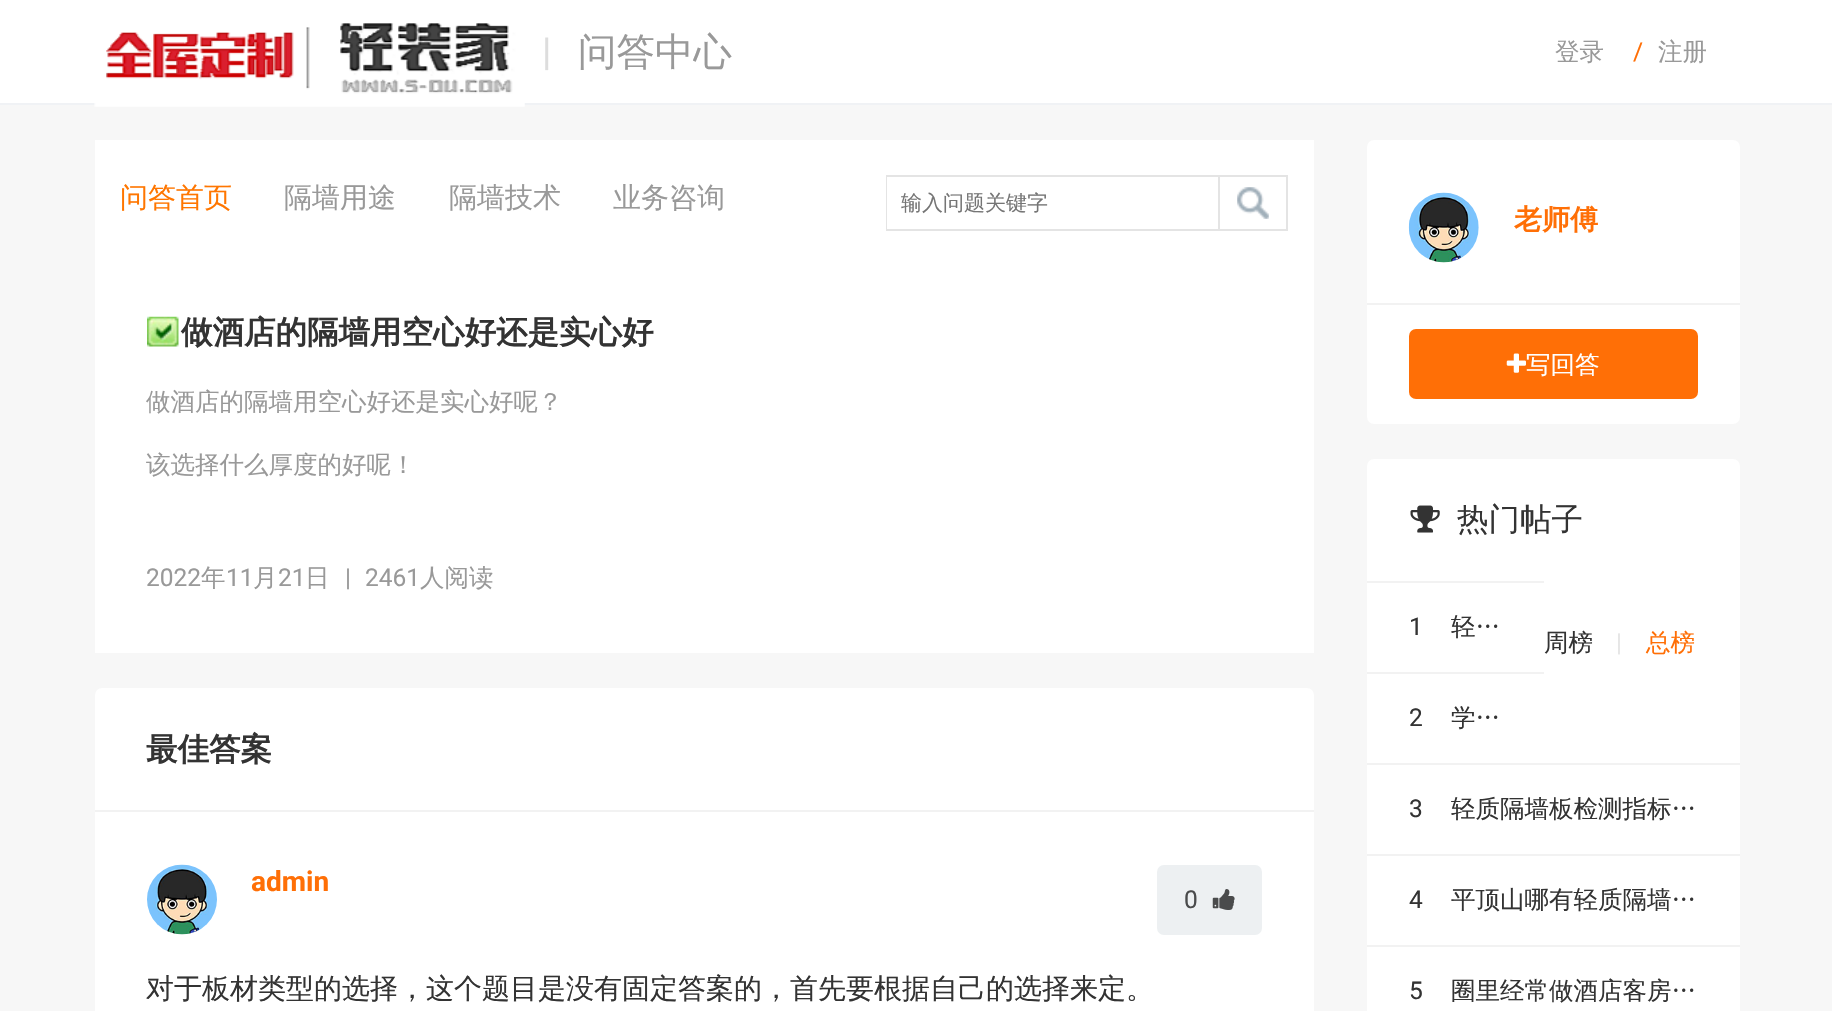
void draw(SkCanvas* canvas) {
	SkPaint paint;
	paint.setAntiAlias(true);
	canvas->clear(0xfff7f7f7);
	paint.setColor(0xffffffff);
	canvas->drawRect(SkRect::MakeXYWH(0, 0, 1832, 103), paint);
	paint.setColor(0xfff0f2f5);
	canvas->drawRect(SkRect::MakeXYWH(0, 103, 1832, 2), paint);
	canvas->drawImageRect(SkImages::DeferredFromEncodedData(SkData::MakeFromFileName("img1.png")), SkRect::MakeXYWH(94, 23, 431, 84), SkSamplingOptions());
	SkFont f1(fontMgr->matchFamilyStyle("Roboto", SkFontStyle::Normal()), 38.5);
	f1.setSubpixel(true);
	paint.setColor(0xffdddddd);
	canvas->drawString("|", 542, 65, f1, paint);
	SkFont f2(fontMgr->matchFamilyStyle("WenQuanYi Zen Hei", SkFontStyle(500, SkFontStyle::kNormal_Width, SkFontStyle::kUpright_Slant)), 38.5);
	f2.setSubpixel(true);
	paint.setColor(0xff999999);
	canvas->drawString("问答中心", 578, 65, f2, paint);
	SkFont f3(fontMgr->matchFamilyStyle("WenQuanYi Zen Hei", SkFontStyle(500, SkFontStyle::kNormal_Width, SkFontStyle::kUpright_Slant)), 24.5);
	f3.setSubpixel(true);
	canvas->drawString("登录", 1555, 60, f3, paint);
	SkFont f4(fontMgr->matchFamilyStyle("Roboto", SkFontStyle::Normal()), 24.5);
	f4.setSubpixel(true);
	paint.setColor(0xffff6f06);
	canvas->drawString("/", 1633, 60, f4, paint);
	paint.setColor(0xff999999);
	canvas->drawString("注册", 1658, 60, f3, paint);
	paint.setColor(0xffffffff);
	canvas->drawRect(SkRect::MakeXYWH(95, 140, 1219, 513), paint);
	SkFont f5(fontMgr->matchFamilyStyle("WenQuanYi Zen Hei", SkFontStyle(500, SkFontStyle::kNormal_Width, SkFontStyle::kUpright_Slant)), 28);
	f5.setSubpixel(true);
	paint.setColor(0xffff7600);
	canvas->drawString("问答首页", 120, 207, f5, paint);
	paint.setColor(0xff999999);
	canvas->drawString("隔墙用途", 284, 207, f5, paint);
	canvas->drawString("隔墙技术", 449, 207, f5, paint);
	canvas->drawString("业务咨询", 613, 207, f5, paint);
	paint.setStroke(true);
	paint.setStrokeWidth(2);
	paint.setColor(0xffe4e4e4);
	canvas->drawRect(SkRect::MakeXYWH(887, 176, 400, 54), paint);
	paint.setStroke(false);
	paint.setColor(0xffffffff);
	canvas->drawRect(SkRect::MakeXYWH(887, 177, 1, 52), paint);
	paint.setColor(0xffe4e4e4);
	canvas->drawRect(SkRect::MakeXYWH(1218, 177, 2, 52), paint);
	SkFont f6(fontMgr->matchFamilyStyle("WenQuanYi Zen Hei", SkFontStyle(500, SkFontStyle::kNormal_Width, SkFontStyle::kUpright_Slant)), 21);
	f6.setSubpixel(true);
	paint.setColor(0xff757575);
	canvas->drawString("输入问题关键字", 901, 210, f6, paint);
	canvas->drawImageRect(SkImages::DeferredFromEncodedData(SkData::MakeFromFileName("img2.png")), SkRect::MakeXYWH(1237, 187, 32, 32), SkSamplingOptions());
	canvas->drawImageRect(SkImages::DeferredFromEncodedData(SkData::MakeFromFileName("img3.png")), SkRect::MakeXYWH(147, 316, 32, 31), SkSamplingOptions());
	SkFont f7(fontMgr->matchFamilyStyle("WenQuanYi Zen Hei", SkFontStyle::Bold()), 31.5);
	f7.setSubpixel(true);
	paint.setColor(0xff333333);
	canvas->drawString("做酒店的隔墙用空心好还是实心好", 181, 343, f7, paint);
	paint.setColor(0xff999999);
	canvas->drawString("做酒店的隔墙用空心好还是实心好呢？", 146, 410, f3, paint);
	canvas->drawString("该选择什么厚度的好呢！", 146, 473, f3, paint);
	canvas->drawString("2022", 146, 586, f4, paint);
	canvas->drawString("年", 201, 586, f3, paint);
	canvas->drawString("11", 226, 586, f4, paint);
	canvas->drawString("月", 253, 586, f3, paint);
	canvas->drawString("21", 278, 586, f4, paint);
	canvas->drawString("日", 305, 586, f3, paint);
	canvas->drawString("|", 345, 586, f4, paint);
	canvas->drawString("2461", 365, 586, f4, paint);
	canvas->drawString("人阅读", 420, 586, f3, paint);
	paint.setColor(0xffffffff);
	canvas->drawRoundRect(SkRect::MakeXYWH(95, 688, 1219, 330), 7, 7, paint);
	paint.setColor(0xff333333);
	canvas->drawString("最佳答案", 146, 760, f7, paint);
	paint.setColor(0xfff2f2f2);
	canvas->drawRect(SkRect::MakeXYWH(95, 810, 1219, 2), paint);
	canvas->drawImageRect(SkImages::DeferredFromEncodedData(SkData::MakeFromFileName("img4.png")), SkRect::MakeXYWH(147, 864, 70, 71), SkSamplingOptions());
	SkFont f8(fontMgr->matchFamilyStyle("Roboto", SkFontStyle::Bold()), 28);
	f8.setSubpixel(true);
	paint.setColor(0xffff6f06);
	canvas->drawString("admin", 251, 891, f8, paint);
	paint.setColor(0xffedf0f2);
	canvas->drawRoundRect(SkRect::MakeXYWH(1157, 865, 105, 70), 7, 7, paint);
	paint.setColor(0xff4a4b4c);
	canvas->drawString("0", 1184, 908, f4, paint);
	canvas->drawImageRect(SkImages::DeferredFromEncodedData(SkData::MakeFromFileName("img5.png")), SkRect::MakeXYWH(1212, 889, 23, 21), SkSamplingOptions());
	paint.setColor(0xff333333);
	canvas->drawString("对于板材类型的选择，这个题目是没有固定答案的，首先要根据自己的选择来定。", 146, 998, f5, paint);
	paint.setColor(0xffffffff);
	canvas->drawRoundRect(SkRect::MakeXYWH(1367, 140, 373, 284), 7, 7, paint);
	paint.setColor(0xfff2f2f2);
	canvas->drawRect(SkRect::MakeXYWH(1367, 303, 373, 2), paint);
	canvas->drawImageRect(SkImages::DeferredFromEncodedData(SkData::MakeFromFileName("img6.png")), SkRect::MakeXYWH(1408, 192, 71, 71), SkSamplingOptions());
	SkFont f9(fontMgr->matchFamilyStyle("WenQuanYi Zen Hei", SkFontStyle::Bold()), 28);
	f9.setSubpixel(true);
	paint.setColor(0xffff6f06);
	canvas->drawString("老师傅", 1514, 229, f9, paint);
	canvas->drawRoundRect(SkRect::MakeXYWH(1409, 329, 289, 70), 7, 7, paint);
	canvas->drawImageRect(SkImages::DeferredFromEncodedData(SkData::MakeFromFileName("img7.png")), SkRect::MakeXYWH(1506, 353, 20, 20), SkSamplingOptions());
	paint.setColor(0xffffffff);
	canvas->drawString("写回答", 1526, 373, f3, paint);
	canvas->drawRoundRect(SkRect::MakeXYWH(1367, 459, 373, 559), 7, 7, paint);
	canvas->drawImageRect(SkImages::DeferredFromEncodedData(SkData::MakeFromFileName("img8.png")), SkRect::MakeXYWH(1410, 505, 30, 28), SkSamplingOptions());
	SkFont f10(fontMgr->matchFamilyStyle("WenQuanYi Zen Hei", SkFontStyle(500, SkFontStyle::kNormal_Width, SkFontStyle::kUpright_Slant)), 31.5);
	f10.setSubpixel(true);
	paint.setColor(0xff333333);
	canvas->drawString("热门帖子", 1457, 530, f10, paint);
	canvas->drawString("周榜", 1544, 651, f3, paint);
	paint.setColor(0xffe5e5e5);
	canvas->drawString("|", 1616, 651, f4, paint);
	paint.setColor(0xffff6f06);
	canvas->drawString("总榜", 1646, 651, f3, paint);
	paint.setColor(0xfff2f2f2);
	canvas->drawRect(SkRect::MakeXYWH(1367, 581, 177, 2), paint);
	paint.setColor(0xff333333);
	canvas->drawString("1", 1409, 635, f4, paint);
	canvas->drawString("轻…", 1451, 635, f3, paint);
	paint.setColor(0xfff2f2f2);
	canvas->drawRect(SkRect::MakeXYWH(1367, 672, 177, 2), paint);
	paint.setColor(0xff333333);
	canvas->drawString("2", 1409, 726, f4, paint);
	canvas->drawString("学…", 1451, 726, f3, paint);
	paint.setColor(0xfff2f2f2);
	canvas->drawRect(SkRect::MakeXYWH(1367, 763, 373, 2), paint);
	paint.setColor(0xff333333);
	canvas->drawString("3", 1409, 817, f4, paint);
	canvas->drawString("轻质隔墙板检测指标…", 1451, 817, f3, paint);
	paint.setColor(0xfff2f2f2);
	canvas->drawRect(SkRect::MakeXYWH(1367, 854, 373, 2), paint);
	paint.setColor(0xff333333);
	canvas->drawString("4", 1409, 908, f4, paint);
	canvas->drawString("平顶山哪有轻质隔墙…", 1451, 908, f3, paint);
	paint.setColor(0xfff2f2f2);
	canvas->drawRect(SkRect::MakeXYWH(1367, 945, 373, 2), paint);
	paint.setColor(0xff333333);
	canvas->drawString("5", 1409, 999, f4, paint);
	canvas->drawString("圈里经常做酒店客房…", 1451, 999, f3, paint);
}
